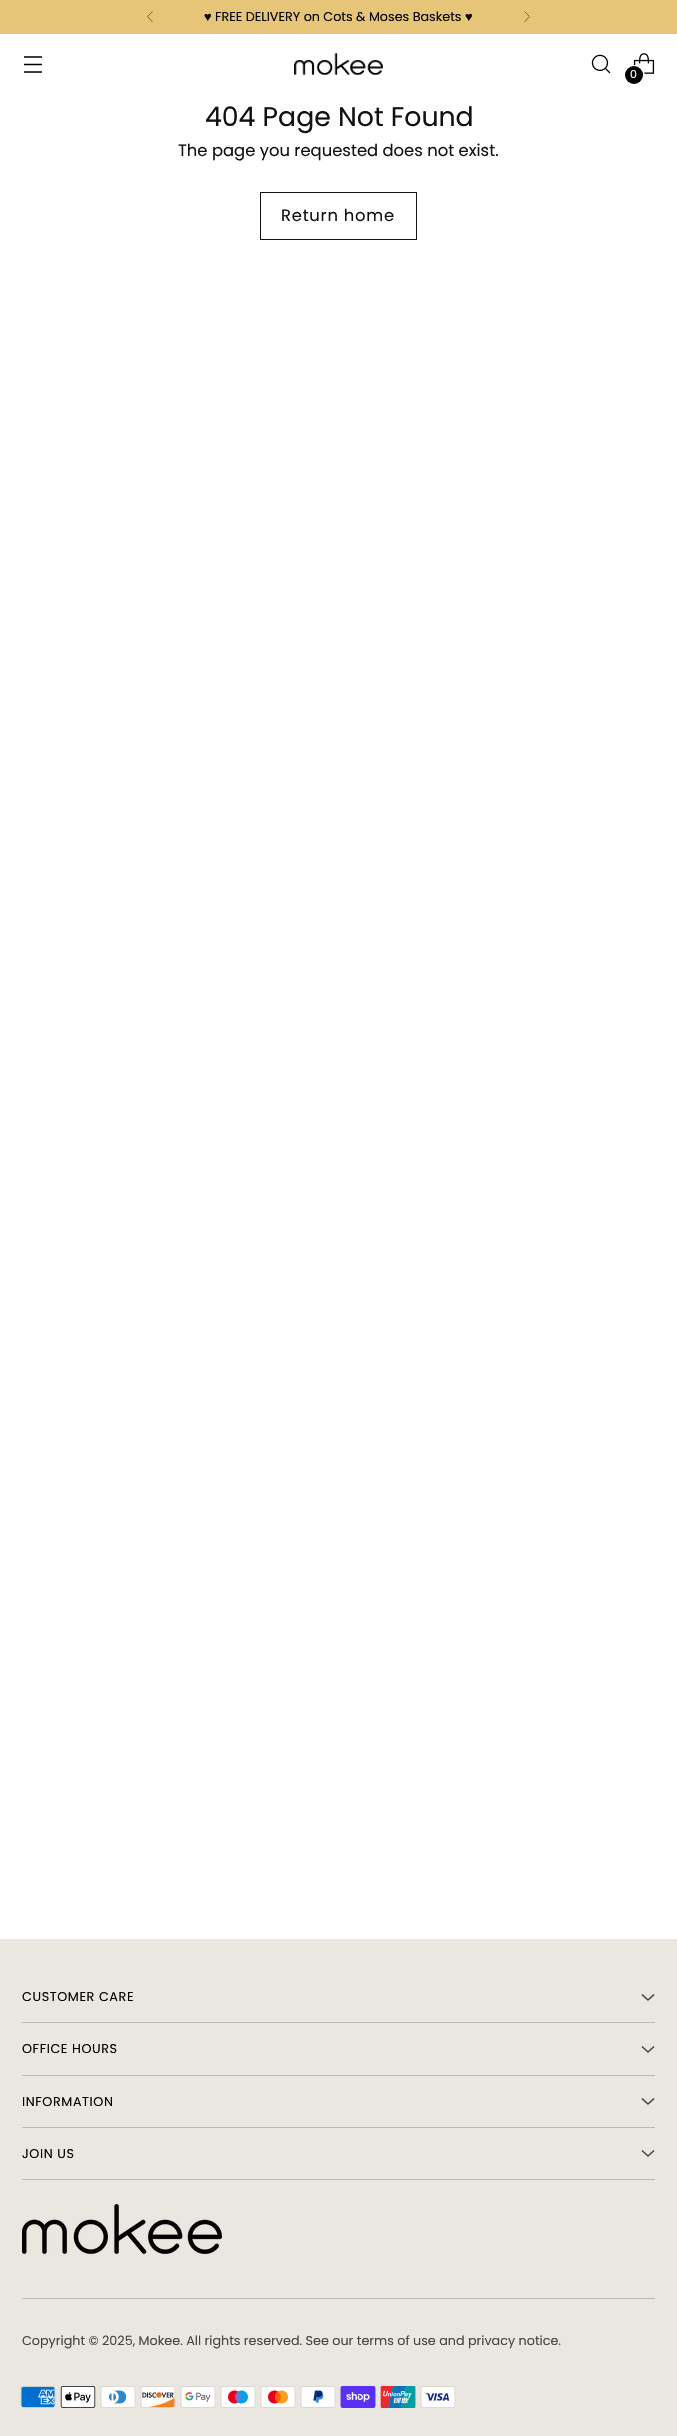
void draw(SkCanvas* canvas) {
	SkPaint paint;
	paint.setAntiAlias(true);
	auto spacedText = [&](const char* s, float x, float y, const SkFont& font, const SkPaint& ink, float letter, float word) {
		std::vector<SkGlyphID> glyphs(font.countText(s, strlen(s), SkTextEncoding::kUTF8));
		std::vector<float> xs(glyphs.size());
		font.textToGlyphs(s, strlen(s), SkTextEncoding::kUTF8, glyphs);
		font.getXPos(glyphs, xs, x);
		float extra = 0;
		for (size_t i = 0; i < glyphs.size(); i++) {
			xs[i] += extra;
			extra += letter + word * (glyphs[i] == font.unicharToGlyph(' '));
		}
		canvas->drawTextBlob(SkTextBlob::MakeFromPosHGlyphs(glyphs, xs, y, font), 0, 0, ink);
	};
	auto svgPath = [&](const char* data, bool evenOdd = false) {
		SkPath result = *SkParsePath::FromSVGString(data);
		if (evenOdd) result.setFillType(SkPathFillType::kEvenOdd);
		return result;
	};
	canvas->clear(0xffffffff);
	paint.setColor(0xffe6c579);
	canvas->drawRect(SkRect::MakeXYWH(0, 0, 677, 34), paint);
	paint.setStroke(true);
	paint.setStrokeWidth(1);
	paint.setColor(0xff73633d);
	canvas->drawPath(svgPath("M152.5 11.5L147.5 16.5L152.5 22"), paint);
	canvas->drawPath(svgPath("M524.5 22L529.5 16.5L524.5 11.5"), paint);
	SkFont f1(fontMgr->matchFamilyStyle("Liberation Sans", SkFontStyle::Normal()), 12.75);
	f1.setSubpixel(true);
	paint.setStroke(false);
	paint.setColor(0xff000000);
	canvas->drawString("♥", 204, 21, f1, paint);
	SkFont f2(fontMgr->matchFamilyStyle("Poppins", SkFontStyle::Normal()), 12.75);
	f2.setSubpixel(true);
	canvas->drawString("FREE DELIVERY on Cots & Moses Baskets", 215, 21, f2, paint);
	canvas->drawString("♥", 465, 21, f1, paint);
	paint.setStroke(true);
	paint.setStrokeWidth(1.3);
	canvas->drawPath(svgPath("M24 64.5H42M24 57H42M24 72H42"), paint);
	canvas->drawImageRect(SkImages::DeferredFromEncodedData(SkData::MakeFromFileName("img1.png")), SkRect::MakeXYWH(294, 53, 89, 22), SkSamplingOptions());
	canvas->drawImageRect(SkImages::DeferredFromEncodedData(SkData::MakeFromFileName("img2.png")), SkRect::MakeXYWH(591, 54, 20, 20), SkSamplingOptions());
	canvas->drawImageRect(SkImages::DeferredFromEncodedData(SkData::MakeFromFileName("img3.png")), SkRect::MakeXYWH(633, 53, 22, 21), SkSamplingOptions());
	paint.setStrokeWidth(2);
	paint.setColor(0xffffffff);
	canvas->drawCircle(634.5, 75.5, 9.5, paint);
	paint.setStroke(false);
	paint.setColor(0xff000000);
	canvas->drawCircle(634, 75, 9, paint);
	SkFont f3(fontMgr->matchFamilyStyle("Poppins", SkFontStyle::Normal()), 11);
	f3.setSubpixel(true);
	paint.setColor(0xffffffff);
	canvas->drawString("0", 630, 78, f3, paint);
	SkFont f4(fontMgr->matchFamilyStyle("Poppins", SkFontStyle::Normal()), 26.75);
	f4.setSubpixel(true);
	paint.setColor(0xff111111);
	canvas->drawString("404 Page Not Found", 205, 126, f4, paint);
	SkFont f5(fontMgr->matchFamilyStyle("Poppins", SkFontStyle::Normal()), 16.4);
	f5.setSubpixel(true);
	canvas->drawString("The page you requested does not exist.", 178, 156, f5, paint);
	paint.setStroke(true);
	paint.setStrokeWidth(1);
	canvas->drawRect(SkRect::MakeXYWH(260.5, 192.5, 156, 47), paint);
	paint.setStroke(false);
	spacedText("Return home", 281, 221, f5, paint, 0.75, 0);
	paint.setColor(0xffeae6e0);
	canvas->drawRect(SkRect::MakeXYWH(0, 1939, 677, 497), paint);
	paint.setColor(0xffbbb8b3);
	canvas->drawRect(SkRect::MakeXYWH(22, 2022, 633, 1), paint);
	paint.setColor(0xff000000);
	spacedText("CUSTOMER CARE", 22, 2001, f2, paint, 0.6, 0);
	paint.setStroke(true);
	paint.setStrokeWidth(1.6);
	paint.setColor(0xff464543);
	canvas->drawPath(svgPath("M642 1994.5L648 2000L654 1994.5M642 2046.5L648 2052L654 2046.5"), paint);
	paint.setStroke(false);
	paint.setColor(0xffbbb8b3);
	canvas->drawRect(SkRect::MakeXYWH(22, 2075, 633, 1), paint);
	paint.setColor(0xff000000);
	spacedText("OFFICE HOURS", 22, 2053, f2, paint, 0.6, 0);
	paint.setColor(0xffbbb8b3);
	canvas->drawRect(SkRect::MakeXYWH(22, 2127, 633, 1), paint);
	paint.setColor(0xff000000);
	spacedText("INFORMATION", 22, 2106, f2, paint, 0.6, 0);
	paint.setStroke(true);
	paint.setColor(0xff464543);
	canvas->drawPath(svgPath("M642 2098.5L648 2104L654 2098.5M642 2150.5L648 2156L654 2150.5"), paint);
	paint.setStroke(false);
	paint.setColor(0xffbbb8b3);
	canvas->drawRect(SkRect::MakeXYWH(22, 2179, 633, 1), paint);
	paint.setColor(0xff000000);
	spacedText("JOIN US", 22, 2158, f2, paint, 0.6, 0);
	paint.setColor(0xffbbb8b3);
	canvas->drawRect(SkRect::MakeXYWH(22, 2298, 633, 1), paint);
	canvas->drawImageRect(SkImages::DeferredFromEncodedData(SkData::MakeFromFileName("img4.png")), SkRect::MakeXYWH(22, 2204, 200, 50), SkSamplingOptions());
	paint.setColor(0xff464543);
	canvas->drawString("Copyright © 2025, Mokee. All rights reserved. See our terms of use and privacy notice.", 22, 2345, f2, paint);
	canvas->drawImageRect(SkImages::DeferredFromEncodedData(SkData::MakeFromFileName("img5.png")), SkRect::MakeXYWH(20, 2386, 36, 22), SkSamplingOptions());
	canvas->drawImageRect(SkImages::DeferredFromEncodedData(SkData::MakeFromFileName("img6.png")), SkRect::MakeXYWH(60, 2386, 36, 22), SkSamplingOptions());
	canvas->drawImageRect(SkImages::DeferredFromEncodedData(SkData::MakeFromFileName("img7.png")), SkRect::MakeXYWH(100, 2386, 36, 22), SkSamplingOptions());
	canvas->drawImageRect(SkImages::DeferredFromEncodedData(SkData::MakeFromFileName("img8.png")), SkRect::MakeXYWH(140, 2386, 36, 22), SkSamplingOptions());
	canvas->drawImageRect(SkImages::DeferredFromEncodedData(SkData::MakeFromFileName("img9.png")), SkRect::MakeXYWH(180, 2386, 36, 22), SkSamplingOptions());
	canvas->drawImageRect(SkImages::DeferredFromEncodedData(SkData::MakeFromFileName("img10.png")), SkRect::MakeXYWH(220, 2386, 36, 22), SkSamplingOptions());
	canvas->drawImageRect(SkImages::DeferredFromEncodedData(SkData::MakeFromFileName("img11.png")), SkRect::MakeXYWH(260, 2386, 36, 22), SkSamplingOptions());
	canvas->drawImageRect(SkImages::DeferredFromEncodedData(SkData::MakeFromFileName("img12.png")), SkRect::MakeXYWH(300, 2386, 36, 22), SkSamplingOptions());
	canvas->drawImageRect(SkImages::DeferredFromEncodedData(SkData::MakeFromFileName("img13.png")), SkRect::MakeXYWH(340, 2386, 36, 22), SkSamplingOptions());
	canvas->drawImageRect(SkImages::DeferredFromEncodedData(SkData::MakeFromFileName("img14.png")), SkRect::MakeXYWH(380, 2386, 36, 22), SkSamplingOptions());
	canvas->drawImageRect(SkImages::DeferredFromEncodedData(SkData::MakeFromFileName("img15.png")), SkRect::MakeXYWH(420, 2386, 36, 22), SkSamplingOptions());
}
